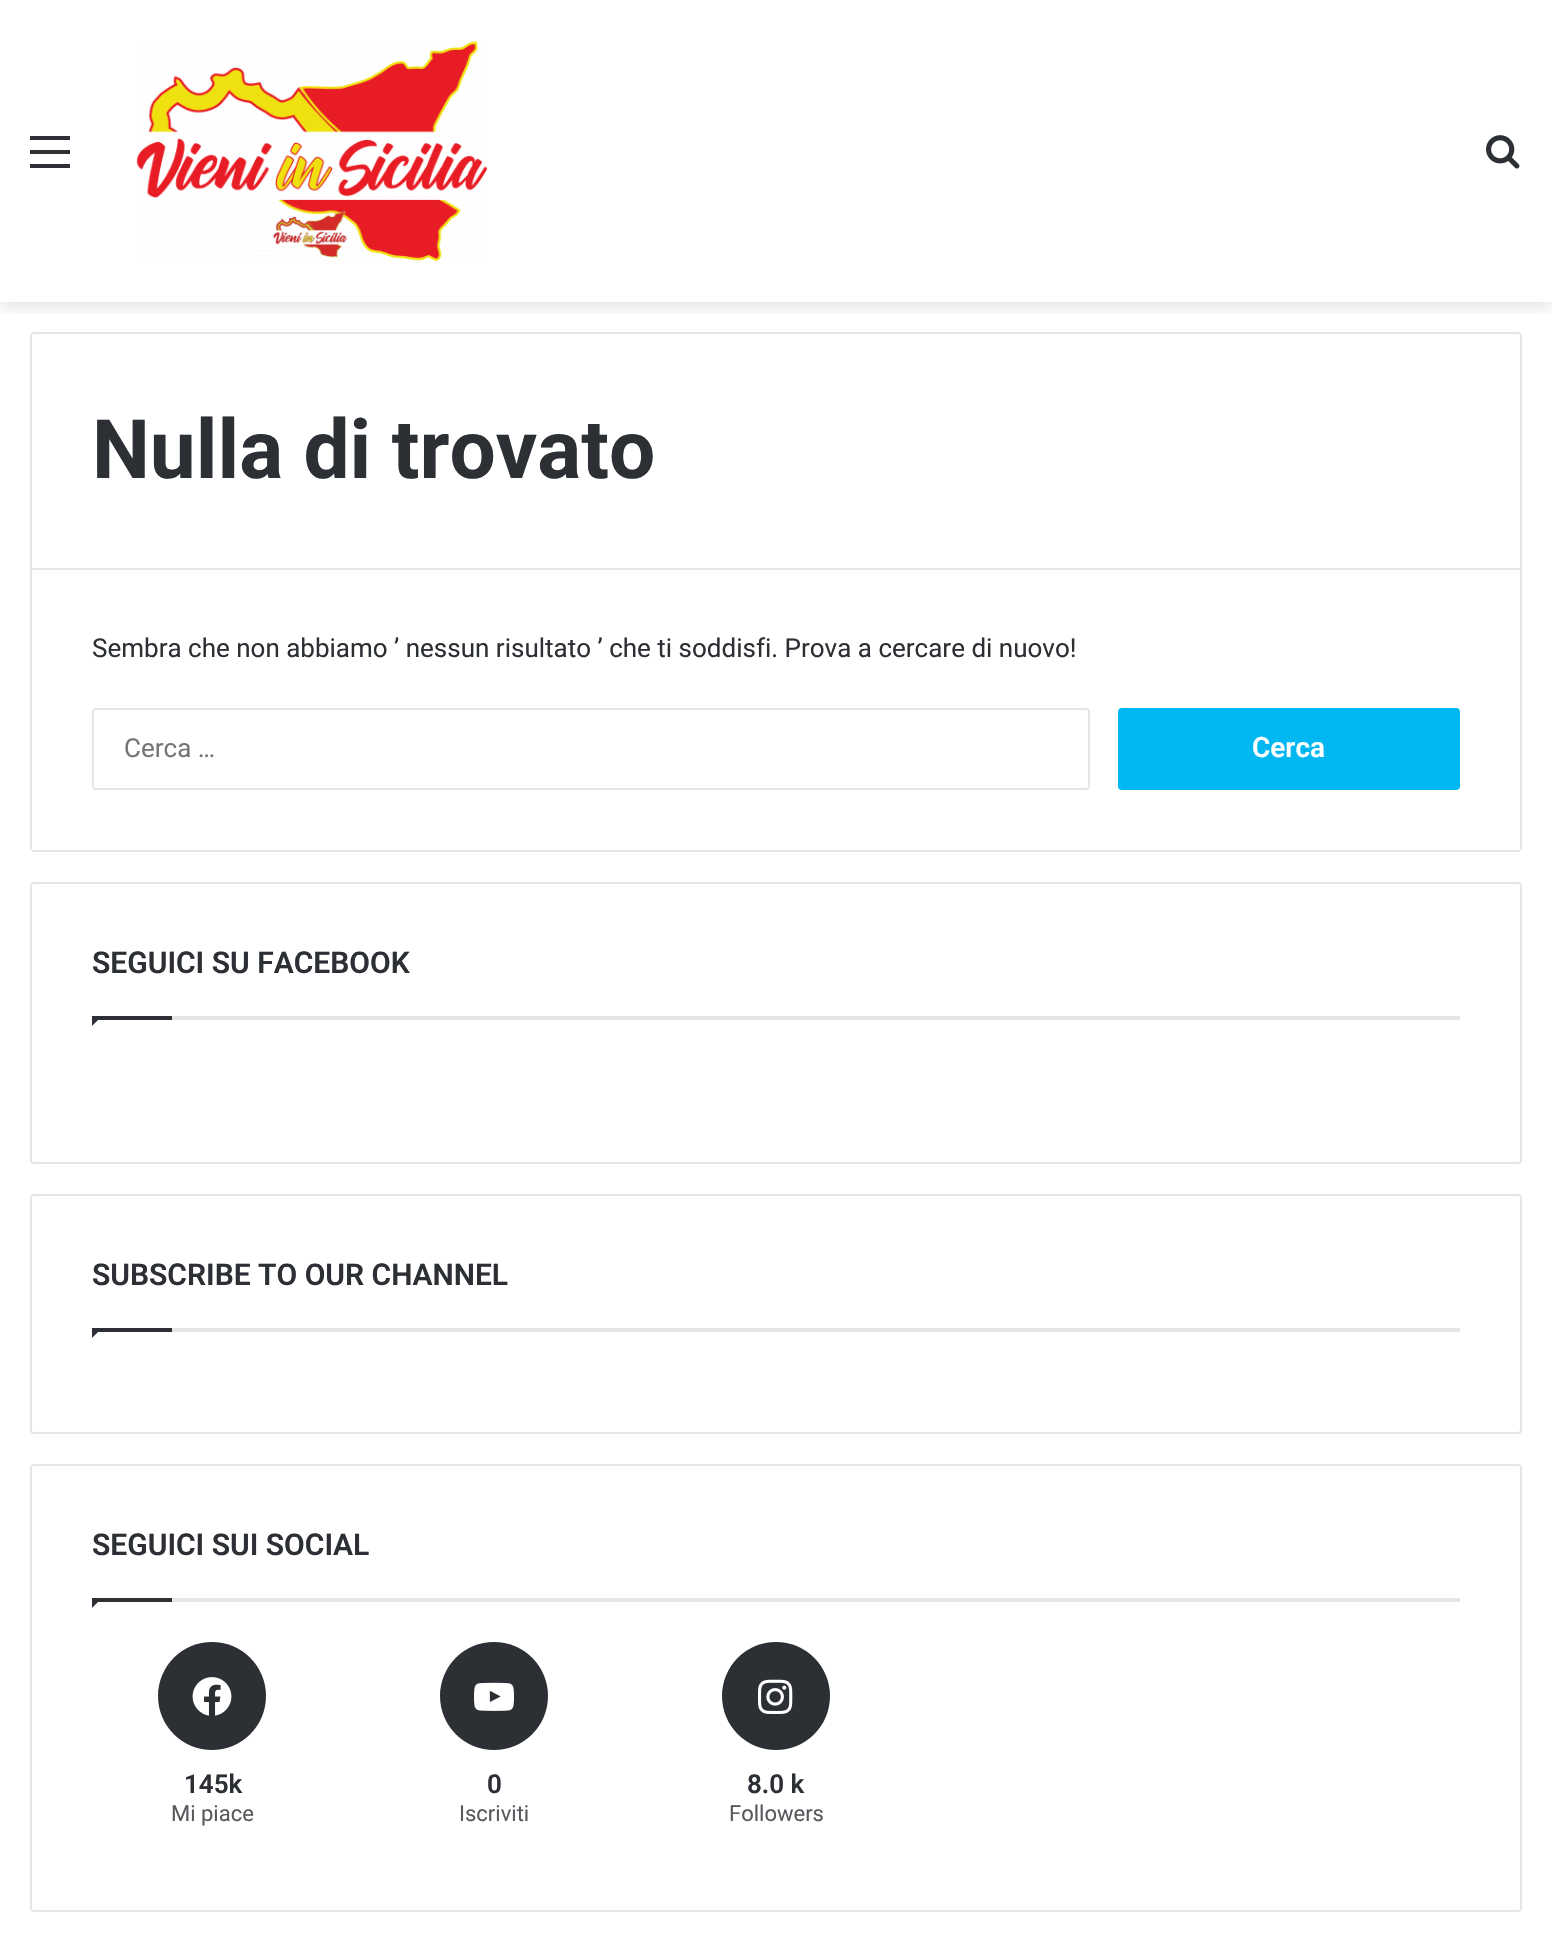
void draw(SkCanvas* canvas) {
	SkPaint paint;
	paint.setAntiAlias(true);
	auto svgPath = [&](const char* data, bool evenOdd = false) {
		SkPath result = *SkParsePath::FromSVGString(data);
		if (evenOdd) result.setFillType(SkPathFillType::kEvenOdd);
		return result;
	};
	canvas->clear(0xffffffff);
	canvas->save();
	canvas->clipRect(SkRect::MakeXYWH(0, 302, 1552, 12));
	paint.setColor(0x1a000000);
	paint.setMaskFilter(SkMaskFilter::MakeBlur(kNormal_SkBlurStyle, 7));
	canvas->drawRect(SkRect::MakeXYWH(0, 6, 1552, 302), paint);
	paint.setMaskFilter(nullptr);
	canvas->restore();
	paint.setColor(0xff2c2f34);
	canvas->drawRect(SkRect::MakeXYWH(30, 150, 40, 4), paint);
	canvas->drawRect(SkRect::MakeXYWH(30, 136, 40, 4), paint);
	canvas->drawRect(SkRect::MakeXYWH(30, 164, 40, 4), paint);
	canvas->drawImageRect(SkImages::DeferredFromEncodedData(SkData::MakeFromFileName("img1.png")), SkRect::MakeXYWH(136, 41, 352, 220), SkSamplingOptions());
	canvas->drawImageRect(SkImages::DeferredFromEncodedData(SkData::MakeFromFileName("img2.png")), SkRect::MakeXYWH(1486, 135, 34, 34), SkSamplingOptions());
	paint.setStroke(true);
	paint.setStrokeWidth(2);
	paint.setColor(0xffe6e6e6);
	canvas->drawPath(svgPath("M34 333H1518C1519.5 333 1521 334.5 1521 336V569H31V336C31 334.5 32.5 333 34 333Z"), paint);
	SkFont f1(fontMgr->matchFamilyStyle("Roboto", SkFontStyle::Bold()), 82);
	f1.setSubpixel(true);
	paint.setStroke(false);
	paint.setColor(0xff2c2f34);
	canvas->drawString("Nulla di trovato", 92, 478, f1, paint);
	paint.setColor(0xffe6e6e6);
	canvas->drawRect(SkRect::MakeXYWH(1520, 570, 2, 280), paint);
	canvas->drawRect(SkRect::MakeXYWH(32, 850, 1488, 2), paint);
	canvas->drawRect(SkRect::MakeXYWH(30, 570, 2, 280), paint);
	SkFont f2(fontMgr->matchFamilyStyle("Roboto", SkFontStyle::Normal()), 26);
	f2.setSubpixel(true);
	paint.setColor(0xff2c2f34);
	canvas->drawString("Sembra che non abbiamo ’ nessun risultato ’ che ti soddisfi. Prova a cercare di nuovo!", 92, 657, f2, paint);
	paint.setStroke(true);
	paint.setColor(0xffe6e6e6);
	canvas->drawRoundRect(SkRect::MakeXYWH(93, 709, 996, 80), 3, 3, paint);
	paint.setStroke(false);
	paint.setColor(0xff757575);
	canvas->drawString("Cerca …", 124, 757, f2, paint);
	paint.setColor(0xff01b7f2);
	canvas->drawRoundRect(SkRect::MakeXYWH(1118, 708, 342, 82), 4, 4, paint);
	SkFont f3(fontMgr->matchFamilyStyle("Roboto", SkFontStyle(600, SkFontStyle::kNormal_Width, SkFontStyle::kUpright_Slant)), 28);
	f3.setSubpixel(true);
	paint.setColor(0xffffffff);
	canvas->drawString("Cerca", 1252, 757, f3, paint);
	paint.setStroke(true);
	paint.setColor(0xffe6e6e6);
	canvas->drawRoundRect(SkRect::MakeXYWH(31, 883, 1490, 280), 3, 3, paint);
	paint.setStroke(false);
	canvas->drawRect(SkRect::MakeXYWH(172, 1016, 1288, 4), paint);
	SkFont f4(fontMgr->matchFamilyStyle("Roboto", SkFontStyle(600, SkFontStyle::kNormal_Width, SkFontStyle::kUpright_Slant)), 30);
	f4.setSubpixel(true);
	paint.setColor(0xff2c2f34);
	canvas->drawString("SEGUICI SU FACEBOOK", 92, 973, f4, paint);
	canvas->drawPath(svgPath("M92 1016H102L92 1026Z"), paint);
	canvas->drawRect(SkRect::MakeXYWH(92, 1016, 80, 4), paint);
	paint.setStroke(true);
	paint.setColor(0xffe6e6e6);
	canvas->drawRoundRect(SkRect::MakeXYWH(31, 1195, 1490, 238), 3, 3, paint);
	paint.setStroke(false);
	canvas->drawRect(SkRect::MakeXYWH(172, 1328, 1288, 4), paint);
	paint.setColor(0xff2c2f34);
	canvas->drawString("SUBSCRIBE TO OUR CHANNEL", 92, 1285, f4, paint);
	canvas->drawPath(svgPath("M92 1328H102L92 1338Z"), paint);
	canvas->drawRect(SkRect::MakeXYWH(92, 1328, 80, 4), paint);
	paint.setStroke(true);
	paint.setColor(0xffe6e6e6);
	canvas->drawRoundRect(SkRect::MakeXYWH(31, 1465, 1490, 446), 3, 3, paint);
	paint.setStroke(false);
	canvas->drawRect(SkRect::MakeXYWH(172, 1598, 1288, 4), paint);
	paint.setColor(0xff2c2f34);
	canvas->drawString("SEGUICI SUI SOCIAL", 92, 1555, f4, paint);
	canvas->drawPath(svgPath("M92 1598H102L92 1608Z"), paint);
	canvas->drawRect(SkRect::MakeXYWH(92, 1598, 80, 4), paint);
	canvas->drawCircle(212, 1696, 54, paint);
	canvas->drawImageRect(SkImages::DeferredFromEncodedData(SkData::MakeFromFileName("img3.png")), SkRect::MakeXYWH(192, 1677, 40, 39), SkSamplingOptions());
	SkFont f5(fontMgr->matchFamilyStyle("Roboto", SkFontStyle(600, SkFontStyle::kNormal_Width, SkFontStyle::kUpright_Slant)), 26);
	f5.setSubpixel(true);
	canvas->drawString("145k", 184, 1793, f5, paint);
	SkFont f6(fontMgr->matchFamilyStyle("Roboto", SkFontStyle::Normal()), 22);
	f6.setSubpixel(true);
	paint.setColor(0xff56595d);
	canvas->drawString("Mi piace", 171, 1821, f6, paint);
	paint.setColor(0xff2c2f34);
	canvas->drawCircle(494, 1696, 54, paint);
	canvas->drawImageRect(SkImages::DeferredFromEncodedData(SkData::MakeFromFileName("img4.png")), SkRect::MakeXYWH(474, 1682, 40, 29), SkSamplingOptions());
	canvas->drawString("0", 487, 1793, f5, paint);
	paint.setColor(0xff56595d);
	canvas->drawString("Iscriviti", 459, 1821, f6, paint);
	paint.setColor(0xff2c2f34);
	canvas->drawCircle(776, 1696, 54, paint);
	canvas->drawImageRect(SkImages::DeferredFromEncodedData(SkData::MakeFromFileName("img5.png")), SkRect::MakeXYWH(758, 1679, 35, 35), SkSamplingOptions());
	canvas->drawString("8.0 k", 747, 1793, f5, paint);
	paint.setColor(0xff56595d);
	canvas->drawString("Followers", 729, 1821, f6, paint);
}
